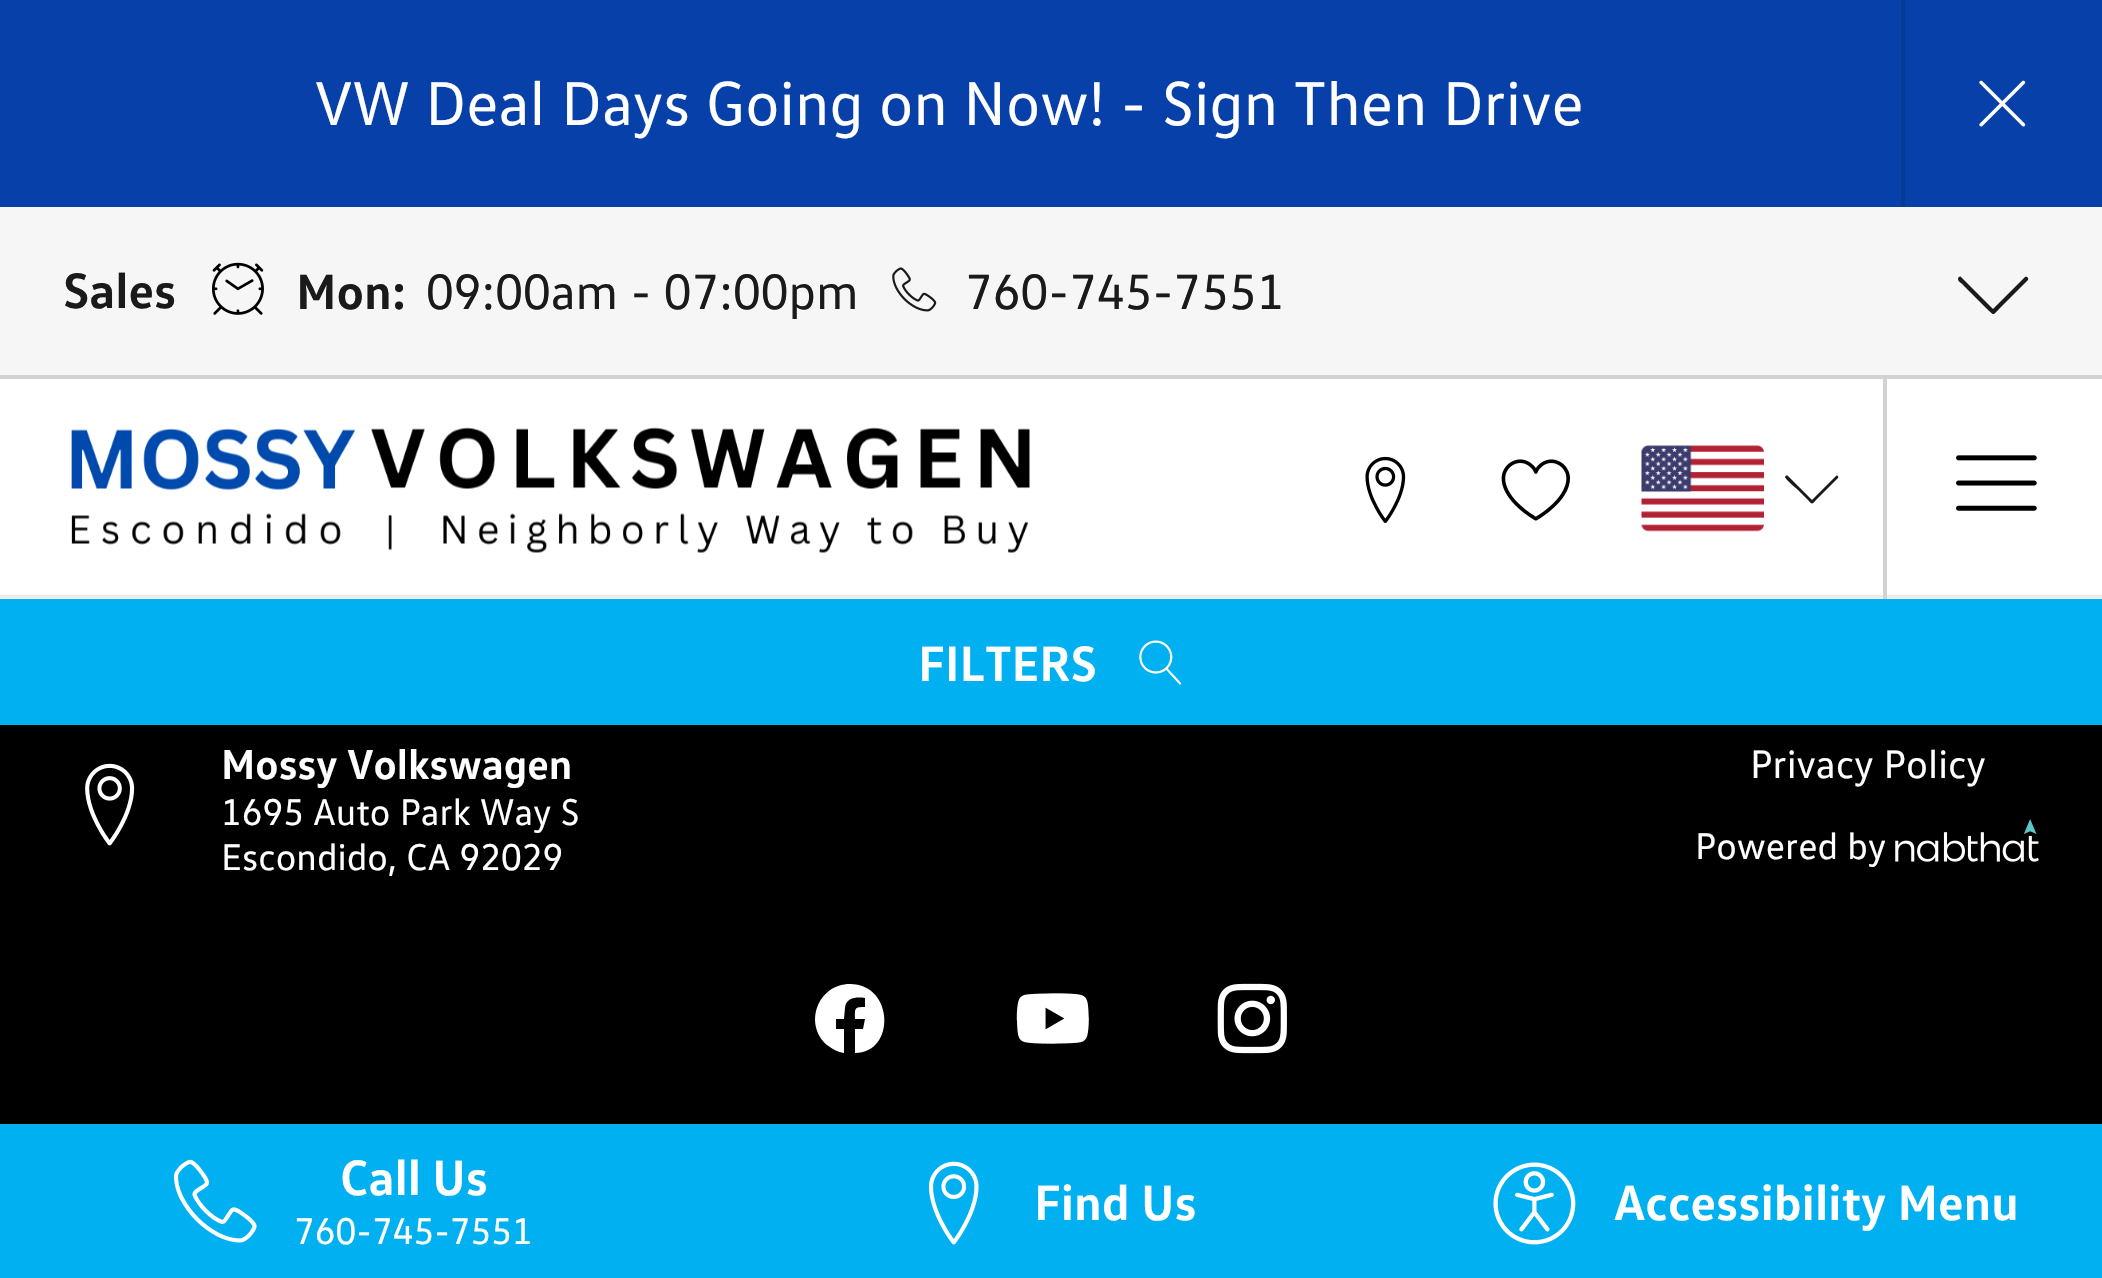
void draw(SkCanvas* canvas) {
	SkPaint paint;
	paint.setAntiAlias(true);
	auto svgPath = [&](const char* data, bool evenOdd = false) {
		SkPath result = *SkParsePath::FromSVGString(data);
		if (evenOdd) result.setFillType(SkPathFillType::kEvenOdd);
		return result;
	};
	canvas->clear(0xff000000);
	paint.setColor(0xff0640a8);
	canvas->drawRect(SkRect::MakeXYWH(0, 0, 2102, 207), paint);
	SkFont f1(fontMgr->matchFamilyStyle("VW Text", SkFontStyle::Normal()), 63);
	f1.setSubpixel(true);
	paint.setColor(0xffffffff);
	canvas->drawString("VW Deal Days Going on Now! - Sign Then Drive", 315, 125, f1, paint);
	paint.setColor(0xff053a97);
	canvas->drawRect(SkRect::MakeXYWH(1901, 0, 4, 207), paint);
	canvas->drawImageRect(SkImages::DeferredFromEncodedData(SkData::MakeFromFileName("img1.png")), SkRect::MakeXYWH(1979, 80, 47, 47), SkSamplingOptions());
	paint.setColor(0xffffffff);
	canvas->drawRect(SkRect::MakeXYWH(0, 379, 2102, 220), paint);
	paint.setColor(0xfff6f6f6);
	canvas->drawRect(SkRect::MakeXYWH(0, 207, 2102, 168), paint);
	paint.setColor(0xffd2d2d2);
	canvas->drawRect(SkRect::MakeXYWH(0, 375, 2102, 4), paint);
	SkFont f2(fontMgr->matchFamilyStyle("VW Text", SkFontStyle::Bold()), 50.5);
	f2.setSubpixel(true);
	paint.setColor(0xff1a1a1a);
	canvas->drawString("Sales", 63, 308, f2, paint);
	canvas->drawImageRect(SkImages::DeferredFromEncodedData(SkData::MakeFromFileName("img2.png")), SkRect::MakeXYWH(212, 262, 52, 53), SkSamplingOptions());
	canvas->drawString("Mon:", 296, 309, f2, paint);
	SkFont f3(fontMgr->matchFamilyStyle("VW Text", SkFontStyle::Normal()), 50.5);
	f3.setSubpixel(true);
	canvas->drawString("09:00am - 07:00pm", 426, 309, f3, paint);
	canvas->drawImageRect(SkImages::DeferredFromEncodedData(SkData::MakeFromFileName("img3.png")), SkRect::MakeXYWH(892, 267, 45, 45), SkSamplingOptions());
	canvas->drawString("760-745-7551", 965, 309, f3, paint);
	canvas->drawPath(svgPath("M1958 279C1958 277 1960 276 1961 277L1993 309L2025 277C2027 276 2029 278 2028 280L2000 308C1992 316 1995 316 1986 308L1964 286C1962 283 1958 282 1958 279Z"), paint);
	canvas->drawImageRect(SkImages::DeferredFromEncodedData(SkData::MakeFromFileName("img4.png")), SkRect::MakeXYWH(71, 427, 959, 126), SkSamplingOptions());
	canvas->drawImageRect(SkImages::DeferredFromEncodedData(SkData::MakeFromFileName("img5.png")), SkRect::MakeXYWH(1365, 456, 41, 67), SkSamplingOptions());
	canvas->drawImageRect(SkImages::DeferredFromEncodedData(SkData::MakeFromFileName("img6.png")), SkRect::MakeXYWH(1501, 459, 69, 62), SkSamplingOptions());
	canvas->drawImageRect(SkImages::DeferredFromEncodedData(SkData::MakeFromFileName("img7.png")), SkRect::MakeXYWH(1641, 445, 123, 87), SkSamplingOptions());
	canvas->drawPath(svgPath("M1785 477C1785 476 1787 475 1788 476L1812 500L1836 476C1837 475 1839 476 1838 478L1817 499C1811 505 1813 505 1807 499L1798 490C1797 489 1785 479 1785 477Z"), paint);
	paint.setColor(0xffebebeb);
	canvas->drawPath(svgPath("M0 595V598H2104V721V595Z"), paint);
	paint.setColor(0xffd2d2d2);
	canvas->drawRect(SkRect::MakeXYWH(1883, 378, 4, 221), paint);
	canvas->drawImageRect(SkImages::DeferredFromEncodedData(SkData::MakeFromFileName("img8.png")), SkRect::MakeXYWH(1956, 455, 81, 56), SkSamplingOptions());
	paint.setColor(0xff00b0f0);
	canvas->drawRect(SkRect::MakeXYWH(0, 599, 2102, 126), paint);
	paint.setColor(0xffffffff);
	canvas->drawString("FILTERS", 918, 681, f2, paint);
	canvas->drawImageRect(SkImages::DeferredFromEncodedData(SkData::MakeFromFileName("img9.png")), SkRect::MakeXYWH(1139, 640, 43, 45), SkSamplingOptions());
	canvas->drawImageRect(SkImages::DeferredFromEncodedData(SkData::MakeFromFileName("img10.png")), SkRect::MakeXYWH(85, 763, 50, 83), SkSamplingOptions());
	SkFont f4(fontMgr->matchFamilyStyle("VW Text", SkFontStyle::Bold()), 42.75);
	f4.setSubpixel(true);
	canvas->drawString("Mossy Volkswagen", 221, 779, f4, paint);
	SkFont f5(fontMgr->matchFamilyStyle("VW Text", SkFontStyle::Normal()), 37.75);
	f5.setSubpixel(true);
	canvas->drawString("1695 Auto Park Way S", 221, 825, f5, paint);
	canvas->drawString("Escondido, CA 92029", 221, 870, f5, paint);
	SkFont f6(fontMgr->matchFamilyStyle("VW Text", SkFontStyle::Normal()), 40.25);
	f6.setSubpixel(true);
	canvas->drawString("Privacy Policy", 1750, 778, f6, paint);
	canvas->drawString("Powered by", 1695, 859, f5, paint);
	canvas->drawImageRect(SkImages::DeferredFromEncodedData(SkData::MakeFromFileName("img11.png")), SkRect::MakeXYWH(1895, 819, 144, 43), SkSamplingOptions());
	canvas->drawPath(svgPath("M850 984C818 984 803 1024 827 1045C832 1049 838 1052 844 1053V1029H836V1019H844L845 1008C846 997 857 997 865 998V1007C854 1007 855 1008 855 1019H865L863 1029H855V1053C896 1053 894 984 850 984Z"), paint);
	canvas->drawImageRect(SkImages::DeferredFromEncodedData(SkData::MakeFromFileName("img12.png")), SkRect::MakeXYWH(1016, 993, 73, 51), SkSamplingOptions());
	canvas->drawImageRect(SkImages::DeferredFromEncodedData(SkData::MakeFromFileName("img13.png")), SkRect::MakeXYWH(1217, 983, 70, 71), SkSamplingOptions());
	paint.setColor(0xff00b0f0);
	canvas->drawRect(SkRect::MakeXYWH(0, 1124, 2102, 154), paint);
	canvas->drawImageRect(SkImages::DeferredFromEncodedData(SkData::MakeFromFileName("img14.png")), SkRect::MakeXYWH(174, 1159, 83, 84), SkSamplingOptions());
	paint.setColor(0xffffffff);
	canvas->drawString("Call Us", 340, 1195, f2, paint);
	canvas->drawString("760-745-7551", 294, 1244, f5, paint);
	canvas->drawImageRect(SkImages::DeferredFromEncodedData(SkData::MakeFromFileName("img15.png")), SkRect::MakeXYWH(928, 1161, 51, 84), SkSamplingOptions());
	canvas->drawString("Find Us", 1034, 1220, f2, paint);
	canvas->drawImageRect(SkImages::DeferredFromEncodedData(SkData::MakeFromFileName("img16.png")), SkRect::MakeXYWH(1493, 1162, 83, 83), SkSamplingOptions());
	canvas->drawString("Accessibility Menu", 1614, 1220, f2, paint);
}
